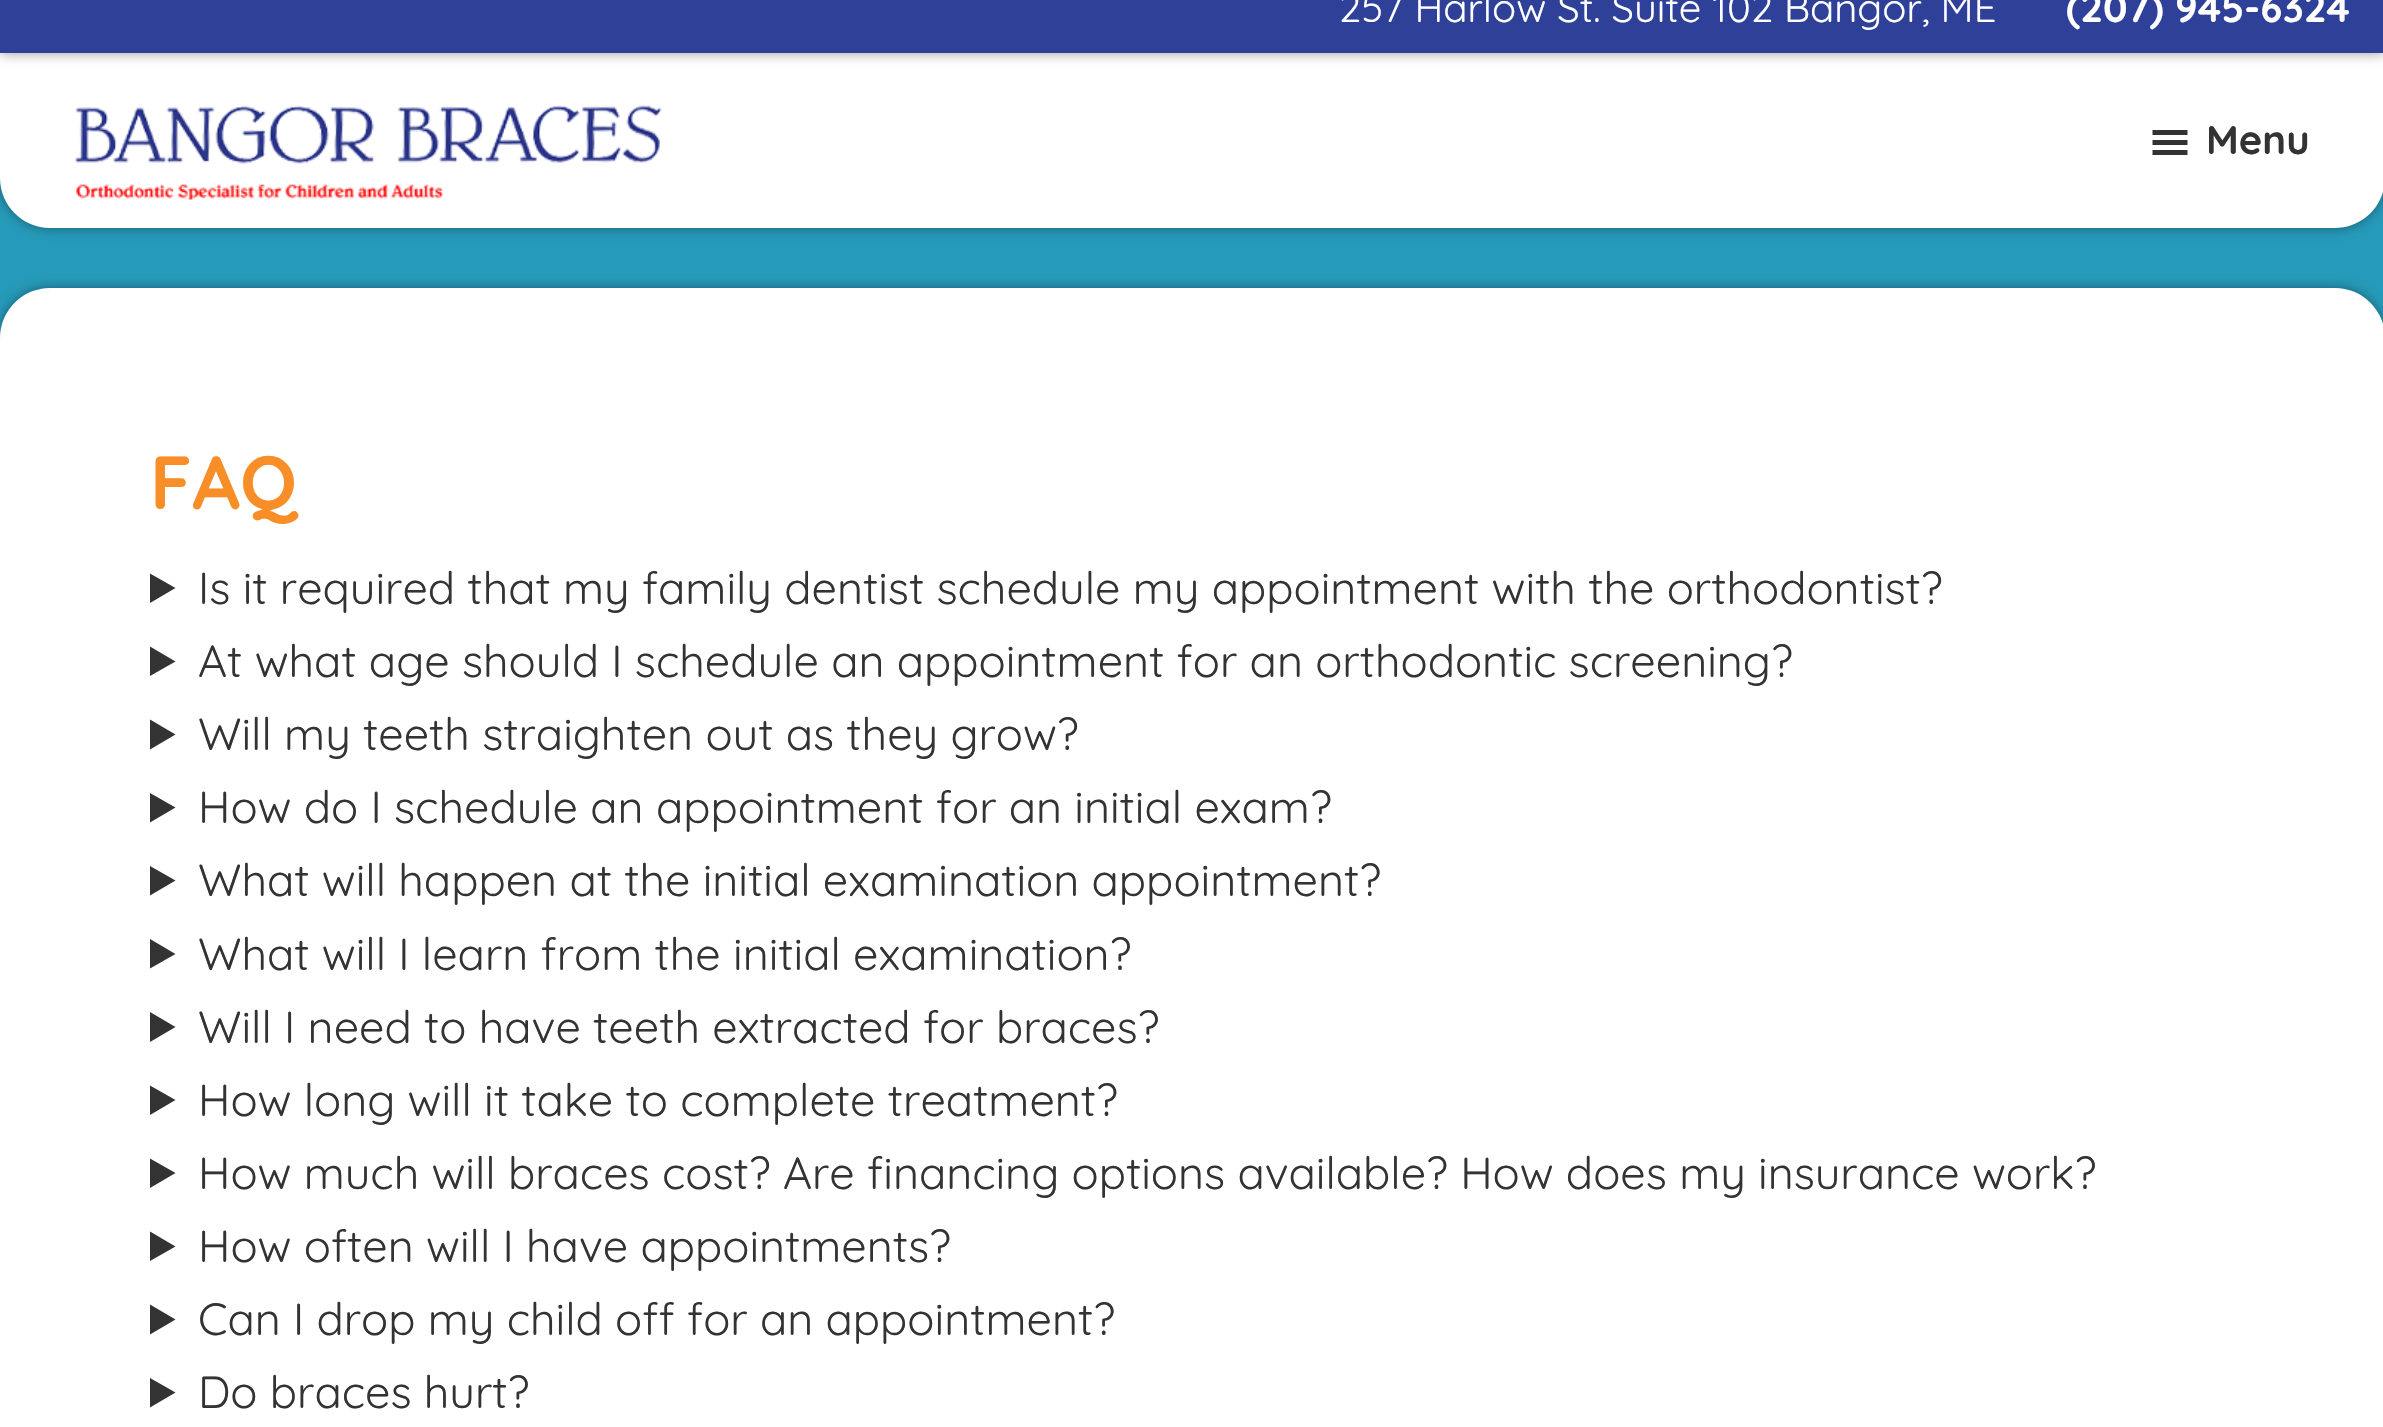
void draw(SkCanvas* canvas) {
	SkPaint paint;
	paint.setAntiAlias(true);
	auto svgPath = [&](const char* data, bool evenOdd = false) {
		SkPath result = *SkParsePath::FromSVGString(data);
		if (evenOdd) result.setFillType(SkPathFillType::kEvenOdd);
		return result;
	};
	canvas->clear(0xff269aba);
	paint.setColor(0x66000000);
	paint.setMaskFilter(SkMaskFilter::MakeBlur(kNormal_SkBlurStyle, 6));
	canvas->drawRoundRect(SkRect::MakeXYWH(0, 53, 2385, 175), 50, 50, paint);
	paint.setMaskFilter(nullptr);
	paint.setColor(0xffffffff);
	canvas->drawPath(svgPath("M0 53H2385V178C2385 205.5 2362.5 228 2335 228H50C22.5 228 0 205.5 0 178Z"), paint);
	paint.setColor(0x66000000);
	paint.setMaskFilter(SkMaskFilter::MakeBlur(kNormal_SkBlurStyle, 6));
	canvas->drawRect(SkRect::MakeXYWH(0, -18, 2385, 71), paint);
	paint.setMaskFilter(nullptr);
	paint.setColor(0xff2f4098);
	canvas->drawRect(SkRect::MakeXYWH(0, 0, 2383, 53), paint);
	SkFont f1(fontMgr->matchFamilyStyle("Quicksand", SkFontStyle::Normal()), 40);
	f1.setSubpixel(true);
	paint.setColor(0xffffffff);
	canvas->drawString("257 Harlow St. Suite 102 Bangor, ME", 1339, 22, f1, paint);
	SkFont f2(fontMgr->matchFamilyStyle("Quicksand", SkFontStyle::Bold()), 40);
	f2.setSubpixel(true);
	canvas->drawString("(207) 945-6324", 2066, 22, f2, paint);
	canvas->drawImageRect(SkImages::DeferredFromEncodedData(SkData::MakeFromFileName("img1.png")), SkRect::MakeXYWH(75, 104, 587, 96), SkSamplingOptions());
	paint.setColor(0xff333333);
	canvas->drawPath(svgPath("M2152.5 155H2187.5V150H2152.5ZM2152.5 130V135H2187.5V130ZM2152.5 145H2187.5V140H2152.5Z"), paint);
	canvas->drawString("Menu", 2206, 154, f2, paint);
	paint.setColor(0x66000000);
	paint.setMaskFilter(SkMaskFilter::MakeBlur(kNormal_SkBlurStyle, 6));
	canvas->drawRoundRect(SkRect::MakeXYWH(0, 288, 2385, 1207), 50, 50, paint);
	paint.setMaskFilter(nullptr);
	paint.setColor(0xffffffff);
	canvas->drawRoundRect(SkRect::MakeXYWH(0, 288, 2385, 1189), 50, 50, paint);
	SkFont f3(fontMgr->matchFamilyStyle("Quicksand", SkFontStyle::Bold()), 75);
	f3.setSubpixel(true);
	paint.setColor(0xfff78e27);
	canvas->drawString("FAQ", 150, 509, f3, paint);
	paint.setColor(0xff333333);
	canvas->drawPath(svgPath("M150 573.5L175.5 588L150 603Z"), paint);
	SkFont f4(fontMgr->matchFamilyStyle("Quicksand", SkFontStyle::Normal()), 45);
	f4.setSubpixel(true);
	canvas->drawString("Is it required that my family dentist schedule my appointment with the orthodontist?", 198, 604, f4, paint);
	canvas->drawPath(svgPath("M150 646.5L175.5 661.5L150 676Z"), paint);
	canvas->drawString("At what age should I schedule an appointment for an orthodontic screening?", 198, 677, f4, paint);
	canvas->drawPath(svgPath("M150 719.5L175.5 734.5L150 749.5Z"), paint);
	canvas->drawString("Will my teeth straighten out as they grow?", 198, 750, f4, paint);
	canvas->drawPath(svgPath("M150 793L175.5 807.5L150 822.5Z"), paint);
	canvas->drawString("How do I schedule an appointment for an initial exam?", 198, 823, f4, paint);
	canvas->drawPath(svgPath("M150 866L175.5 880.5L150 895.5Z"), paint);
	canvas->drawString("What will happen at the initial examination appointment?", 198, 896, f4, paint);
	canvas->drawPath(svgPath("M150 939L175.5 954L150 968.5Z"), paint);
	canvas->drawString("What will I learn from the initial examination?", 198, 970, f4, paint);
	canvas->drawPath(svgPath("M150 1012L175.5 1027L150 1042Z"), paint);
	canvas->drawString("Will I need to have teeth extracted for braces?", 198, 1043, f4, paint);
	canvas->drawPath(svgPath("M150 1085.5L175.5 1100L150 1115Z"), paint);
	canvas->drawString("How long will it take to complete treatment?", 198, 1116, f4, paint);
	canvas->drawPath(svgPath("M150 1158.5L175.5 1173L150 1188Z"), paint);
	canvas->drawString("How much will braces cost? Are financing options available? How does my insurance work?", 198, 1189, f4, paint);
	canvas->drawPath(svgPath("M150 1231.5L175.5 1246.5L150 1261Z"), paint);
	canvas->drawString("How often will I have appointments?", 198, 1262, f4, paint);
	canvas->drawPath(svgPath("M150 1304.5L175.5 1319.5L150 1334.5Z"), paint);
	canvas->drawString("Can I drop my child off for an appointment?", 198, 1335, f4, paint);
	canvas->drawPath(svgPath("M150 1378L175.5 1392.5L150 1407.5Z"), paint);
	canvas->drawString("Do braces hurt?", 198, 1408, f4, paint);
}
